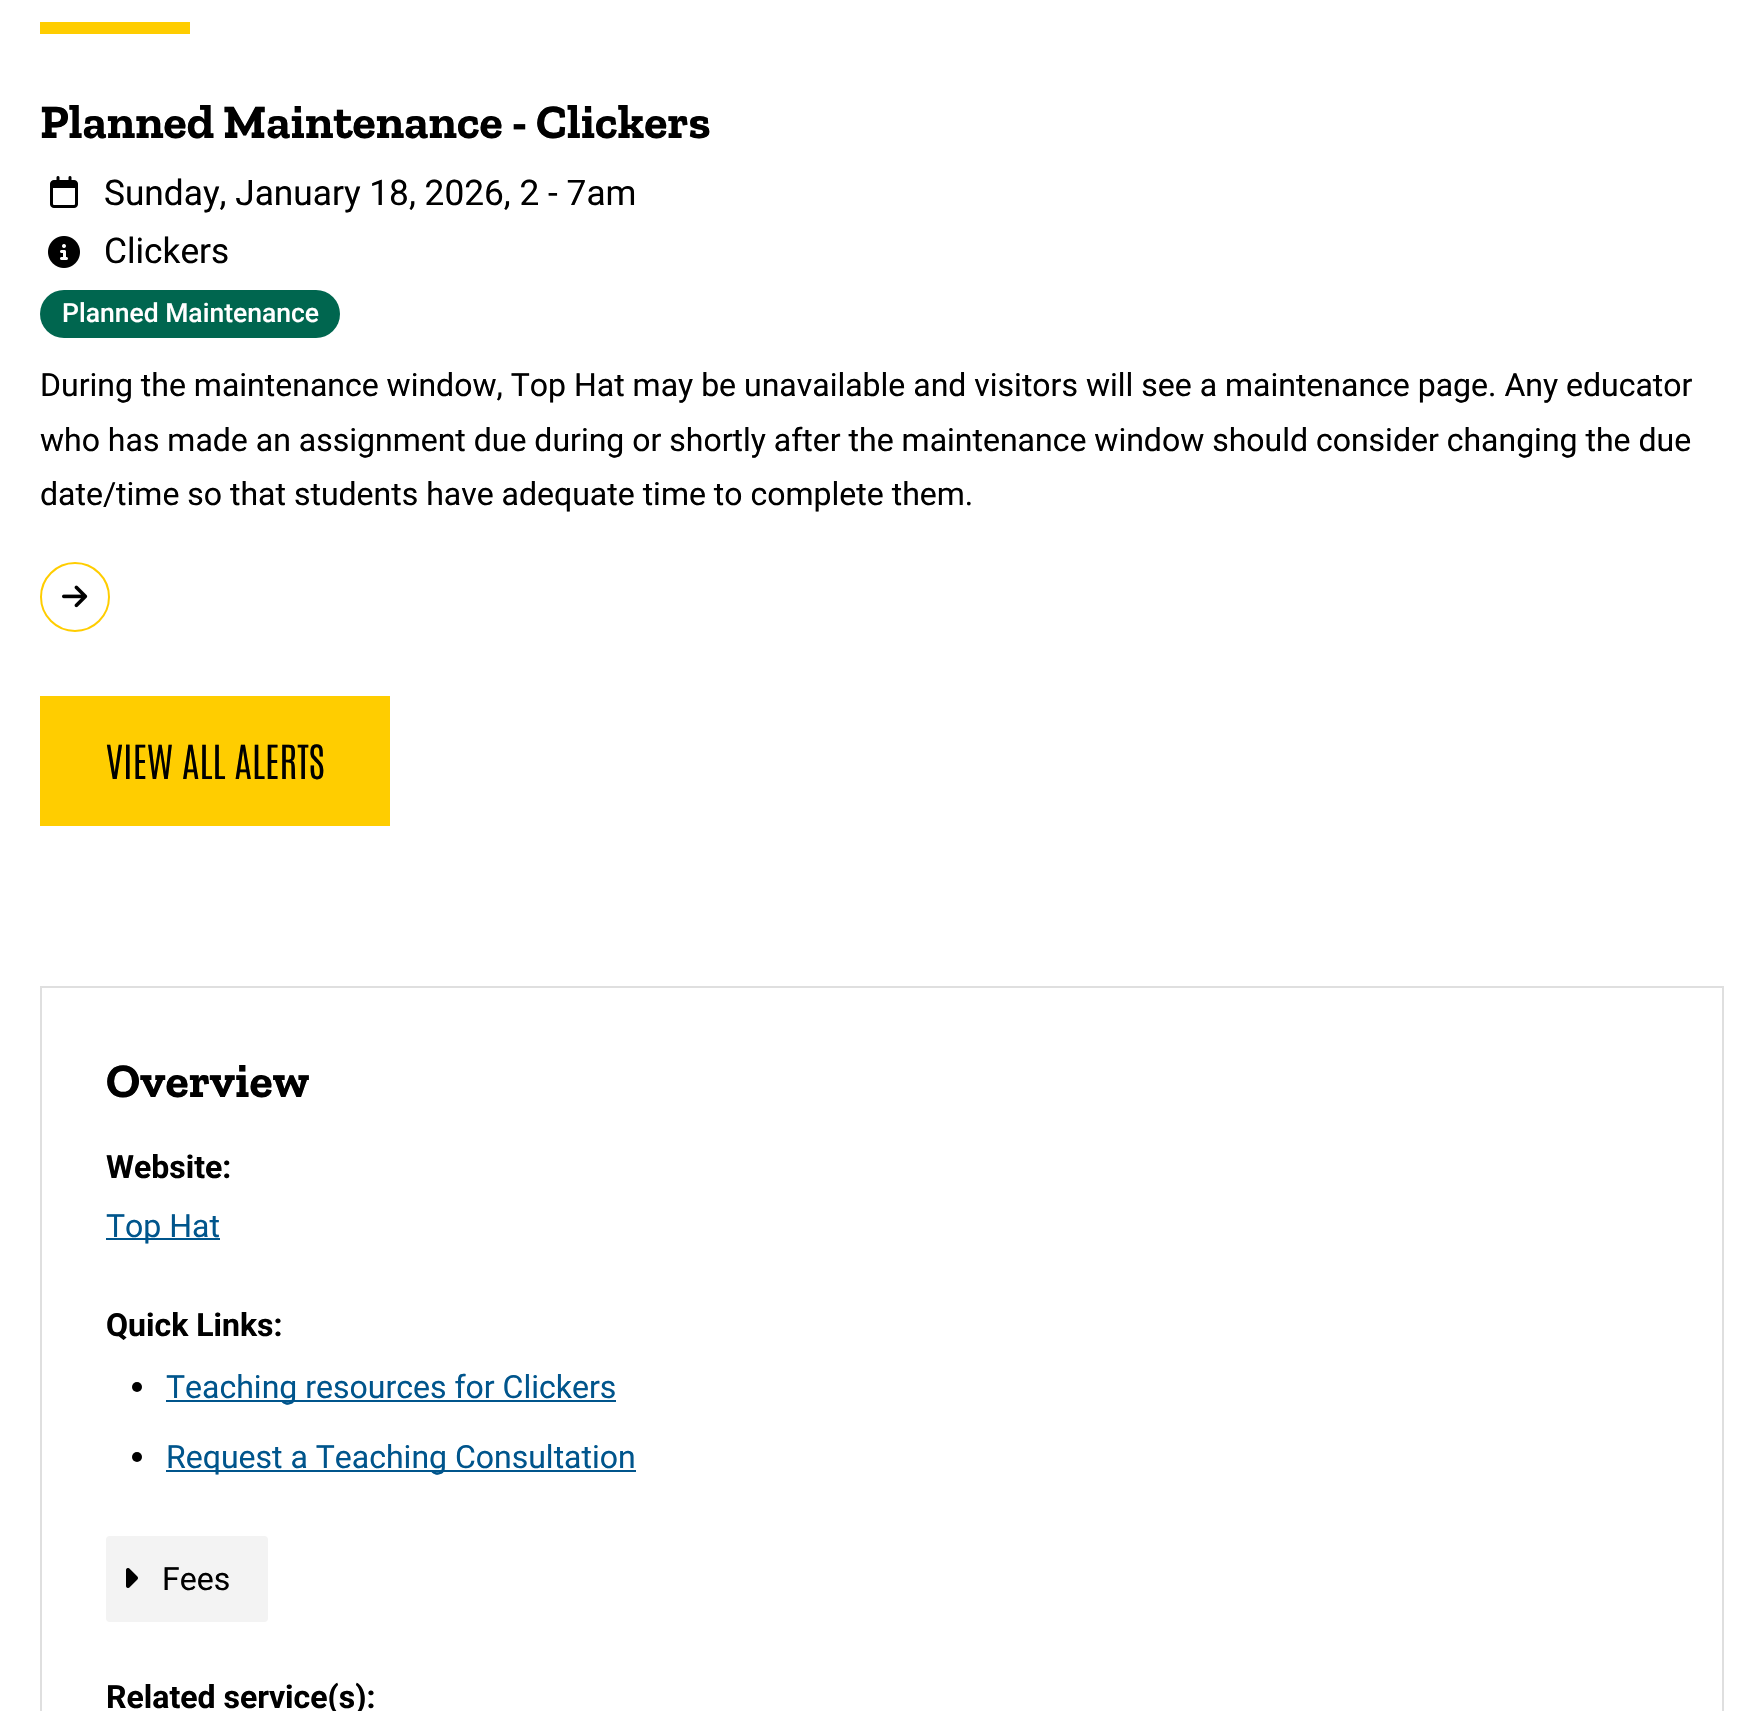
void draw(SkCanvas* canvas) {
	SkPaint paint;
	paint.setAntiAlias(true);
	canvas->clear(0xffffffff);
	paint.setColor(0xffffcd00);
	canvas->drawRect(SkRect::MakeXYWH(40, 22, 150, 12), paint);
	SkFont f1(fontMgr->matchFamilyStyle("Zilla Slab", SkFontStyle::Bold()), 48);
	f1.setSubpixel(true);
	paint.setColor(0xff000000);
	canvas->drawString("Planned Maintenance - Clickers", 40, 138, f1, paint);
	canvas->drawImageRect(SkImages::DeferredFromEncodedData(SkData::MakeFromFileName("img1.png")), SkRect::MakeXYWH(50, 176, 28, 32), SkSamplingOptions());
	SkFont f2(fontMgr->matchFamilyStyle("Roboto", SkFontStyle::Normal()), 35.25);
	f2.setSubpixel(true);
	canvas->drawString("Sunday, January 18, 2026, 2 - 7am", 104, 205, f2, paint);
	canvas->drawImageRect(SkImages::DeferredFromEncodedData(SkData::MakeFromFileName("img2.png")), SkRect::MakeXYWH(48, 236, 32, 32), SkSamplingOptions());
	canvas->drawString("Clickers", 104, 263, f2, paint);
	paint.setColor(0xff00664f);
	canvas->drawRoundRect(SkRect::MakeXYWH(40, 290, 300, 48), 24, 24, paint);
	SkFont f3(fontMgr->matchFamilyStyle("Roboto", SkFontStyle(500, SkFontStyle::kNormal_Width, SkFontStyle::kUpright_Slant)), 26.5);
	f3.setSubpixel(true);
	paint.setColor(0xffffffff);
	canvas->drawString("Planned Maintenance", 62, 322, f3, paint);
	SkFont f4(fontMgr->matchFamilyStyle("Roboto", SkFontStyle::Normal()), 32);
	f4.setSubpixel(true);
	paint.setColor(0xff000000);
	canvas->drawString("During the maintenance window, Top Hat may be unavailable and visitors will see a maintenance page. Any educator", 40, 396, f4, paint);
	canvas->drawString("who has made an assignment due during or shortly after the maintenance window should consider changing the due", 40, 451, f4, paint);
	canvas->drawString("date/time so that students have adequate time to complete them.", 40, 505, f4, paint);
	paint.setStroke(true);
	paint.setStrokeWidth(2);
	paint.setColor(0xffffcd00);
	canvas->drawCircle(75, 597, 34, paint);
	canvas->drawImageRect(SkImages::DeferredFromEncodedData(SkData::MakeFromFileName("img3.png")), SkRect::MakeXYWH(62, 585, 26, 23), SkSamplingOptions());
	paint.setStroke(false);
	canvas->drawRect(SkRect::MakeXYWH(40, 696, 350, 130), paint);
	SkFont f5(fontMgr->matchFamilyStyle("Antonio", SkFontStyle(300, SkFontStyle::kNormal_Width, SkFontStyle::kUpright_Slant)), 40);
	f5.setSubpixel(true);
	paint.setColor(0xff000000);
	canvas->drawString("VIEW ALL ALERTS", 106, 779, f5, paint);
	paint.setStroke(true);
	paint.setColor(0xffdfdfdf);
	canvas->drawRect(SkRect::MakeXYWH(41, 987, 1682, 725), paint);
	paint.setStroke(false);
	paint.setColor(0xff000000);
	canvas->drawString("Overview", 106, 1097, f1, paint);
	SkFont f6(fontMgr->matchFamilyStyle("Roboto", SkFontStyle::Bold()), 32);
	f6.setSubpixel(true);
	canvas->drawString("Website:", 106, 1178, f6, paint);
	paint.setColor(0xff00558c);
	canvas->drawRect(SkRect::MakeXYWH(106, 1238, 114, 2), paint);
	canvas->drawString("Top Hat", 106, 1237, f4, paint);
	paint.setColor(0xff000000);
	canvas->drawString("Quick Links:", 106, 1336, f6, paint);
	canvas->drawCircle(137, 1387, 5, paint);
	paint.setColor(0xff00558c);
	canvas->drawRect(SkRect::MakeXYWH(166, 1400, 450, 2), paint);
	canvas->drawString("Teaching resources for Clickers", 166, 1398, f4, paint);
	paint.setColor(0xff000000);
	canvas->drawCircle(137, 1457, 5, paint);
	paint.setColor(0xff00558c);
	canvas->drawRect(SkRect::MakeXYWH(166, 1470, 470, 2), paint);
	canvas->drawString("Request a Teaching Consultation", 166, 1468, f4, paint);
	paint.setColor(0xfff3f3f3);
	canvas->drawRoundRect(SkRect::MakeXYWH(106, 1536, 162, 86), 4, 4, paint);
	canvas->drawImageRect(SkImages::DeferredFromEncodedData(SkData::MakeFromFileName("img4.png")), SkRect::MakeXYWH(126, 1568, 12, 20), SkSamplingOptions());
	paint.setColor(0xff000000);
	canvas->drawString("Fees", 162, 1590, f4, paint);
	canvas->drawString("Related service(s):", 106, 1708, f6, paint);
}
